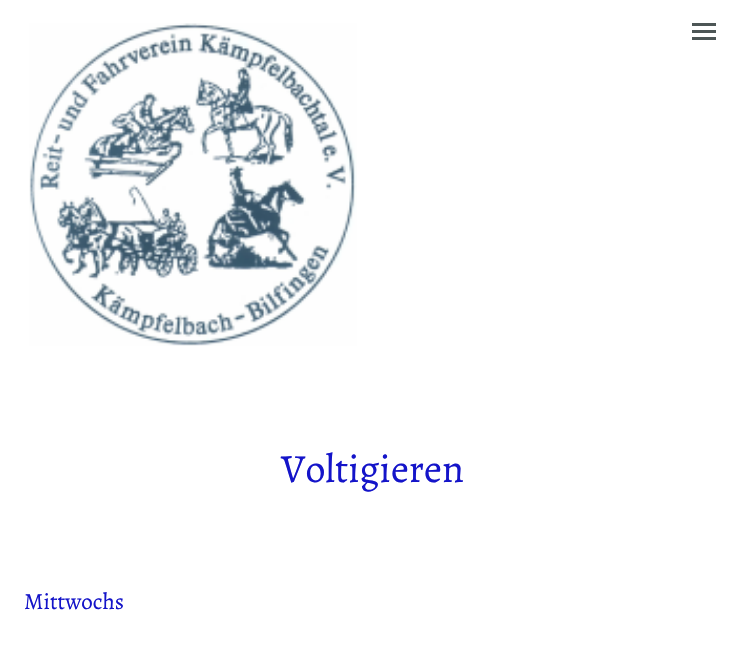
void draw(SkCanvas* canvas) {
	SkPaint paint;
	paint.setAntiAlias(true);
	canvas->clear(0xffffffff);
	canvas->drawImageRect(SkImages::DeferredFromEncodedData(SkData::MakeFromFileName("img1.png")), SkRect::MakeXYWH(29, 23, 328, 323), SkSamplingOptions());
	paint.setColor(0xff4d5656);
	canvas->drawRect(SkRect::MakeXYWH(692, 23, 24, 3), paint);
	canvas->drawRect(SkRect::MakeXYWH(692, 30, 24, 3), paint);
	canvas->drawRect(SkRect::MakeXYWH(692, 37, 24, 3), paint);
	SkFont f1(fontMgr->matchFamilyStyle("Alegreya", SkFontStyle::Normal()), 40);
	f1.setSubpixel(true);
	paint.setColor(0xff1414c9);
	canvas->drawString("Voltigieren", 281, 482, f1, paint);
	SkFont f2(fontMgr->matchFamilyStyle("Alegreya", SkFontStyle::Normal()), 23);
	f2.setSubpixel(true);
	canvas->drawString("Mittwochs", 24, 609, f2, paint);
}
